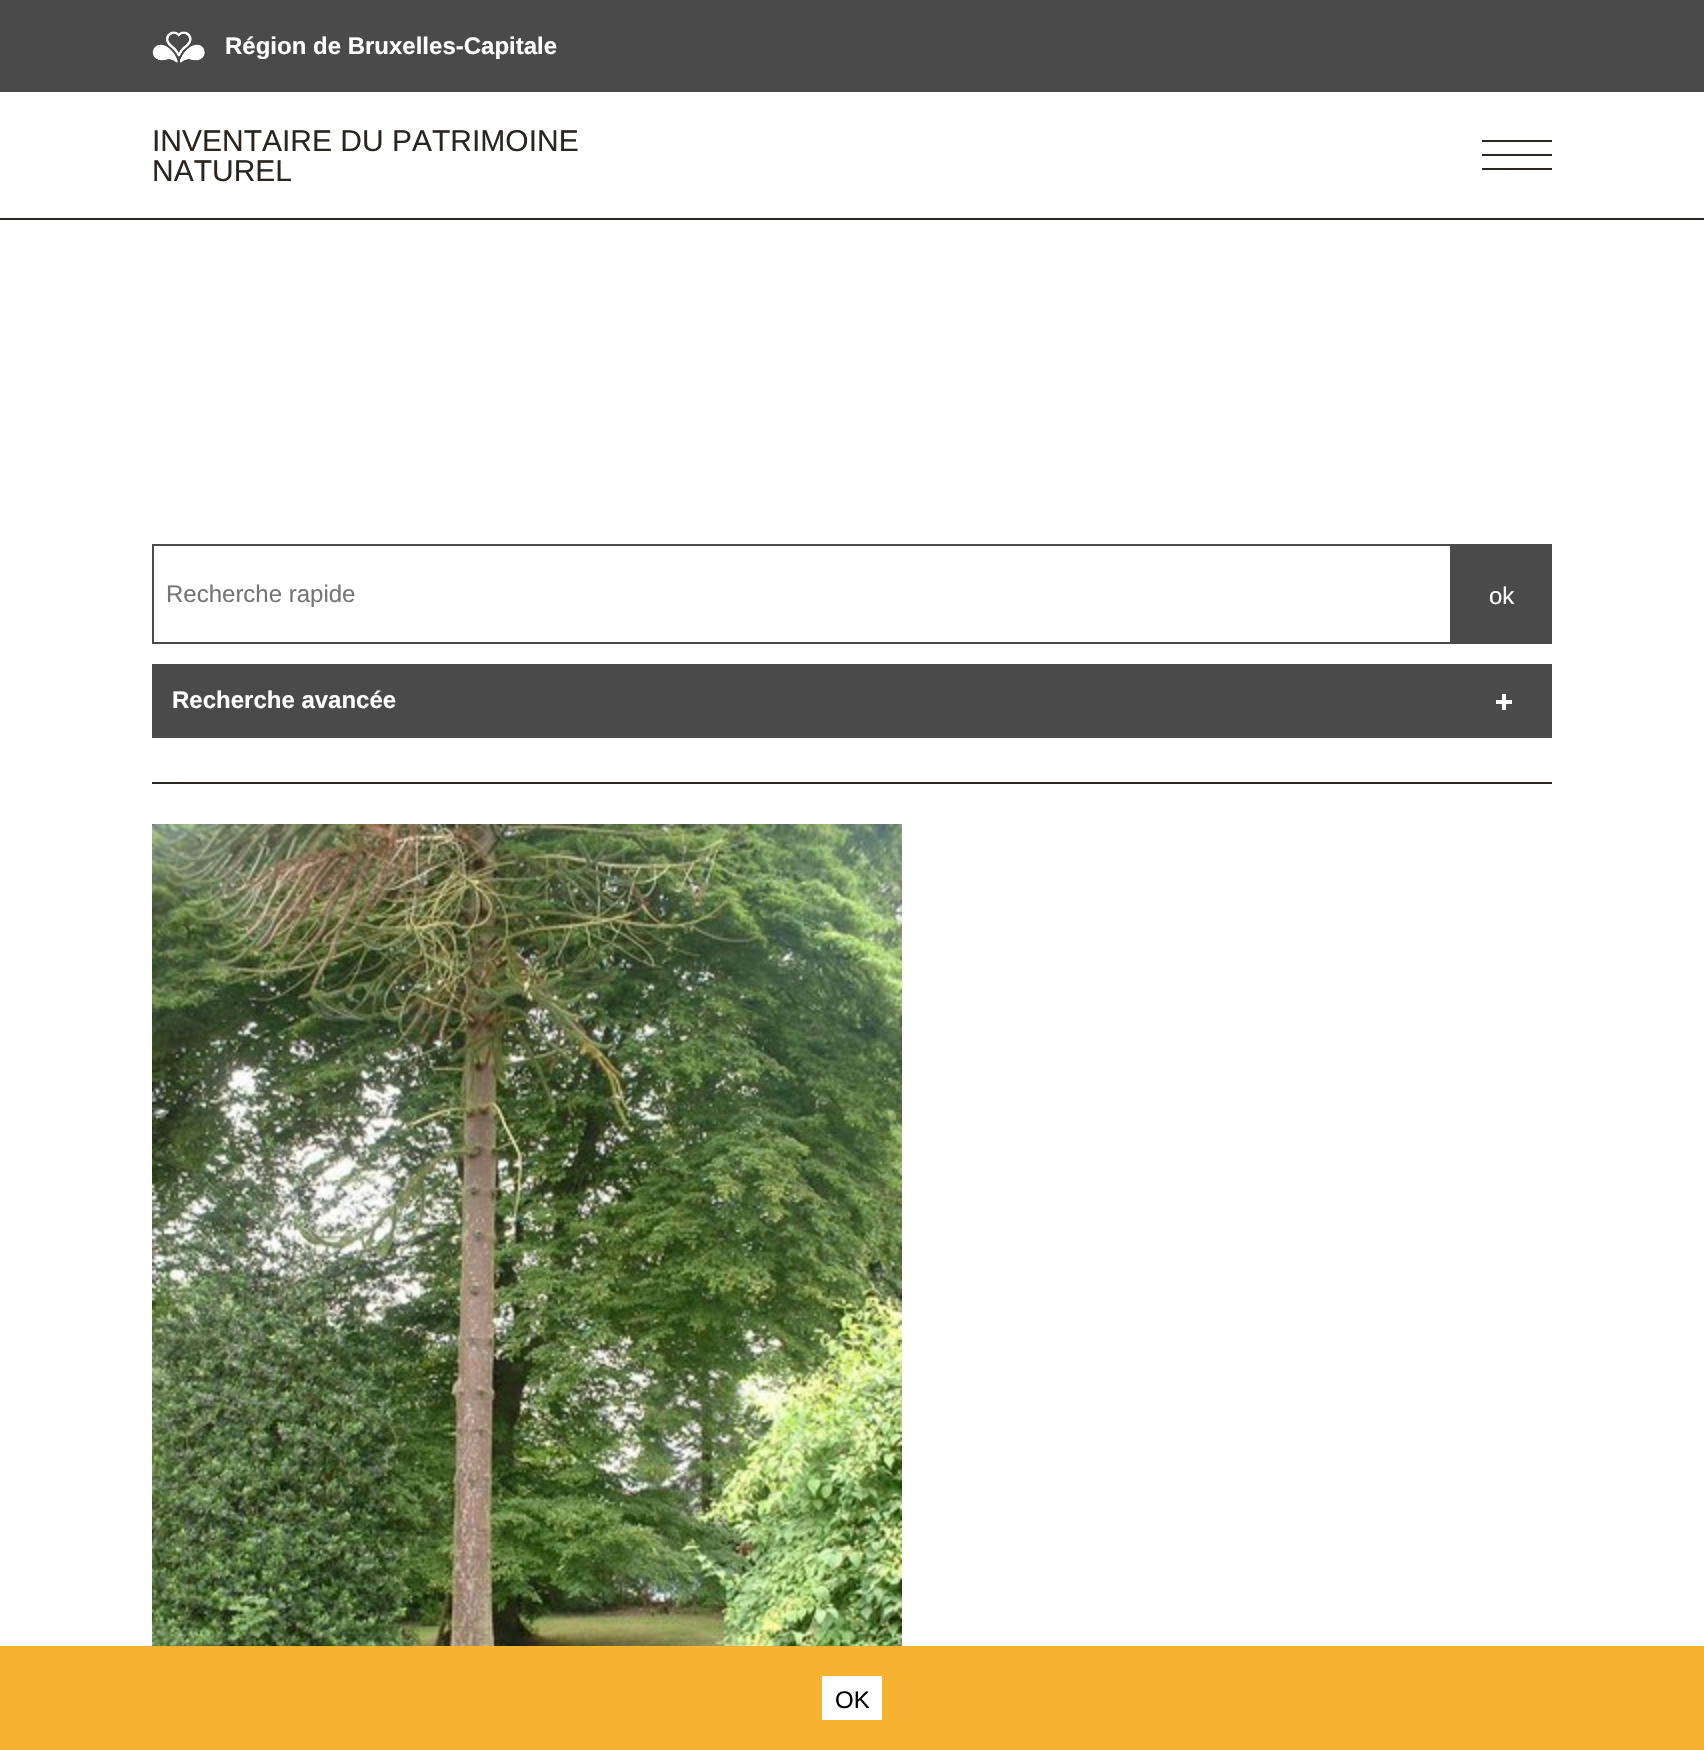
void draw(SkCanvas* canvas) {
	SkPaint paint;
	paint.setAntiAlias(true);
	canvas->clear(0xffffffff);
	paint.setColor(0xff4a4a4a);
	canvas->drawRect(SkRect::MakeXYWH(0, 0, 1704, 92), paint);
	canvas->drawImageRect(SkImages::DeferredFromEncodedData(SkData::MakeFromFileName("img1.png")), SkRect::MakeXYWH(152, 31, 53, 32), SkSamplingOptions());
	SkFont f1(fontMgr->matchFamilyStyle("Liberation Sans", SkFontStyle::Bold()), 24);
	f1.setSubpixel(true);
	paint.setColor(0xffffffff);
	canvas->drawString("Région de Bruxelles-Capitale", 225, 54, f1, paint);
	paint.setColor(0xff2a2520);
	canvas->drawRect(SkRect::MakeXYWH(0, 218, 1704, 2), paint);
	SkFont f2(fontMgr->matchFamilyStyle("Liberation Sans", SkFontStyle::Normal()), 30);
	f2.setSubpixel(true);
	canvas->drawString("INVENTAIRE DU PATRIMOINE", 152, 151, f2, paint);
	canvas->drawString("NATUREL", 152, 181, f2, paint);
	canvas->drawRect(SkRect::MakeXYWH(1482, 154, 70, 2), paint);
	canvas->drawRect(SkRect::MakeXYWH(1482, 140, 70, 2), paint);
	canvas->drawRect(SkRect::MakeXYWH(1482, 168, 70, 2), paint);
	paint.setStroke(true);
	paint.setStrokeWidth(2);
	paint.setColor(0xff4a4a4a);
	canvas->drawRect(SkRect::MakeXYWH(153, 545, 1298, 98), paint);
	SkFont f3(fontMgr->matchFamilyStyle("Liberation Sans", SkFontStyle::Normal()), 24);
	f3.setSubpixel(true);
	paint.setStroke(false);
	paint.setColor(0xff757575);
	canvas->drawString("Recherche rapide", 166, 602, f3, paint);
	paint.setColor(0xff4a4a4a);
	canvas->drawRect(SkRect::MakeXYWH(1452, 544, 100, 100), paint);
	paint.setColor(0xffffffff);
	canvas->drawString("ok", 1489, 604, f3, paint);
	paint.setColor(0xff4a4a4a);
	canvas->drawRect(SkRect::MakeXYWH(152, 664, 1400, 74), paint);
	paint.setColor(0xffffffff);
	canvas->drawString("Recherche avancée", 172, 708, f1, paint);
	canvas->drawRect(SkRect::MakeXYWH(1502, 694, 4, 16), paint);
	canvas->drawRect(SkRect::MakeXYWH(1496, 700, 16, 4), paint);
	paint.setColor(0xff2a2520);
	canvas->drawRect(SkRect::MakeXYWH(152, 782, 1400, 2), paint);
	canvas->drawImageRect(SkImages::DeferredFromEncodedData(SkData::MakeFromFileName("img2.png")), SkRect::MakeXYWH(152, 824, 750, 822), SkSamplingOptions());
	paint.setColor(0xfff8b232);
	canvas->drawRect(SkRect::MakeXYWH(0, 1646, 1704, 104), paint);
	paint.setColor(0xffffffff);
	canvas->drawRect(SkRect::MakeXYWH(822, 1676, 60, 44), paint);
	paint.setColor(0xff000000);
	canvas->drawString("OK", 835, 1708, f3, paint);
}
